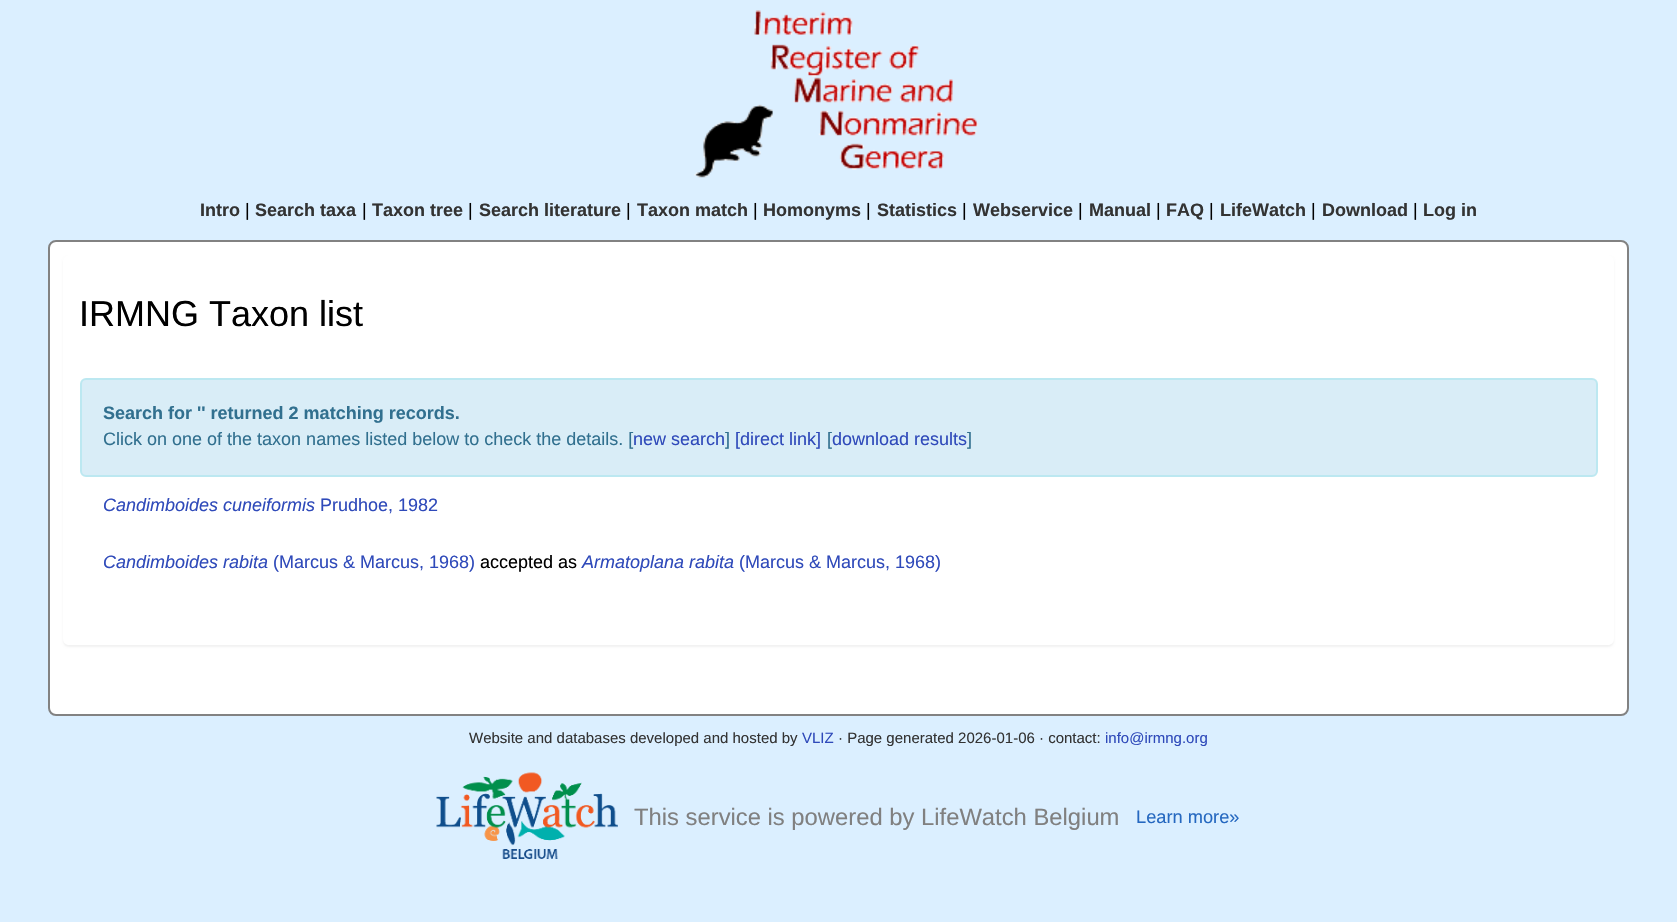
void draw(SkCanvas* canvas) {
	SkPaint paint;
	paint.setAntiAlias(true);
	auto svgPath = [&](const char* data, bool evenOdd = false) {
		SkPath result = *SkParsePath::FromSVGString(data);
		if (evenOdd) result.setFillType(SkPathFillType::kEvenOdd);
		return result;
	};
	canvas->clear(0xffdbefff);
	canvas->drawImageRect(SkImages::DeferredFromEncodedData(SkData::MakeFromFileName("img1.png")), SkRect::MakeXYWH(694, 10, 285, 168), SkSamplingOptions());
	SkFont f1(fontMgr->matchFamilyStyle("Liberation Sans", SkFontStyle::Bold()), 18);
	f1.setSubpixel(true);
	paint.setColor(0xff333333);
	canvas->drawString("Intro", 200, 216, f1, paint);
	SkFont f2(fontMgr->matchFamilyStyle("Liberation Sans", SkFontStyle::Normal()), 18);
	f2.setSubpixel(true);
	paint.setColor(0xff000000);
	canvas->drawString("|", 245, 216, f2, paint);
	paint.setColor(0xff333333);
	canvas->drawString("Search taxa", 255, 216, f1, paint);
	paint.setColor(0xff000000);
	canvas->drawString("|", 362, 216, f2, paint);
	paint.setColor(0xff333333);
	canvas->drawString("Taxon tree", 372, 216, f1, paint);
	paint.setColor(0xff000000);
	canvas->drawString("|", 468, 216, f2, paint);
	paint.setColor(0xff333333);
	canvas->drawString("Search literature", 479, 216, f1, paint);
	paint.setColor(0xff000000);
	canvas->drawString("|", 626, 216, f2, paint);
	paint.setColor(0xff333333);
	canvas->drawString("Taxon match", 637, 216, f1, paint);
	paint.setColor(0xff000000);
	canvas->drawString("|", 753, 216, f2, paint);
	paint.setColor(0xff333333);
	canvas->drawString("Homonyms", 763, 216, f1, paint);
	paint.setColor(0xff000000);
	canvas->drawString("|", 866, 216, f2, paint);
	paint.setColor(0xff333333);
	canvas->drawString("Statistics", 877, 216, f1, paint);
	paint.setColor(0xff000000);
	canvas->drawString("|", 962, 216, f2, paint);
	paint.setColor(0xff333333);
	canvas->drawString("Webservice", 973, 216, f1, paint);
	paint.setColor(0xff000000);
	canvas->drawString("|", 1078, 216, f2, paint);
	paint.setColor(0xff333333);
	canvas->drawString("Manual", 1089, 216, f1, paint);
	paint.setColor(0xff000000);
	canvas->drawString("|", 1156, 216, f2, paint);
	paint.setColor(0xff333333);
	canvas->drawString("FAQ", 1166, 216, f1, paint);
	paint.setColor(0xff000000);
	canvas->drawString("|", 1209, 216, f2, paint);
	paint.setColor(0xff333333);
	canvas->drawString("LifeWatch", 1220, 216, f1, paint);
	paint.setColor(0xff000000);
	canvas->drawString("|", 1311, 216, f2, paint);
	paint.setColor(0xff333333);
	canvas->drawString("Download", 1322, 216, f1, paint);
	paint.setColor(0xff000000);
	canvas->drawString("|", 1413, 216, f2, paint);
	paint.setColor(0xff333333);
	canvas->drawString("Log in", 1423, 216, f1, paint);
	paint.setColor(0xffffffff);
	canvas->drawRoundRect(SkRect::MakeXYWH(49, 241, 1579, 474), 7, 7, paint);
	paint.setStroke(true);
	paint.setStrokeWidth(2);
	paint.setColor(0xff828282);
	canvas->drawRoundRect(SkRect::MakeXYWH(49, 241, 1579, 474), 7, 7, paint);
	canvas->save();
	canvas->clipPath(svgPath("M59 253H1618V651H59ZM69 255H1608C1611.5 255 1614 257.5 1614 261V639C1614 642.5 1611.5 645 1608 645H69C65.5 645 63 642.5 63 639V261C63 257.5 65.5 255 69 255Z", true), true);
	paint.setStroke(false);
	paint.setColor(0x0d000000);
	paint.setMaskFilter(SkMaskFilter::MakeBlur(kNormal_SkBlurStyle, 1));
	canvas->drawRoundRect(SkRect::MakeXYWH(63, 257, 1551, 390), 6, 6, paint);
	paint.setMaskFilter(nullptr);
	canvas->restore();
	SkFont f3(fontMgr->matchFamilyStyle("Liberation Sans", SkFontStyle::Normal()), 36);
	f3.setSubpixel(true);
	paint.setColor(0xff000000);
	canvas->drawString("IRMNG Taxon list", 79, 326, f3, paint);
	paint.setColor(0xffd9edf7);
	canvas->drawRoundRect(SkRect::MakeXYWH(81, 379, 1516, 97), 5, 5, paint);
	paint.setStroke(true);
	paint.setColor(0xffbce8f1);
	canvas->drawRoundRect(SkRect::MakeXYWH(81, 379, 1516, 97), 5, 5, paint);
	paint.setStroke(false);
	paint.setColor(0xff31708f);
	canvas->drawString("Search for '' returned 2 matching records.", 103, 419, f1, paint);
	canvas->drawString("Click on one of the taxon names listed below to check the details. [", 103, 445, f2, paint);
	paint.setColor(0xff2f4aba);
	canvas->drawString("new search", 633, 445, f2, paint);
	paint.setColor(0xff31708f);
	canvas->drawString("]", 725, 445, f2, paint);
	paint.setColor(0xff2f4aba);
	canvas->drawString("[direct link]", 735, 445, f2, paint);
	paint.setColor(0xff31708f);
	canvas->drawString("[", 827, 445, f2, paint);
	paint.setColor(0xff2f4aba);
	canvas->drawString("download results", 832, 445, f2, paint);
	paint.setColor(0xff31708f);
	canvas->drawString("]", 967, 445, f2, paint);
	SkFont f4(fontMgr->matchFamilyStyle("Liberation Sans", SkFontStyle::Italic()), 18);
	f4.setSubpixel(true);
	paint.setColor(0xff2f4aba);
	canvas->drawString("Candimboides cuneiformis", 103, 511, f4, paint);
	canvas->drawString("Prudhoe, 1982", 320, 511, f2, paint);
	canvas->drawString("Candimboides rabita", 103, 568, f4, paint);
	canvas->drawString("(Marcus & Marcus, 1968)", 273, 568, f2, paint);
	paint.setColor(0xff000000);
	canvas->drawString("accepted as", 480, 568, f2, paint);
	paint.setColor(0xff2f4aba);
	canvas->drawString("Armatoplana rabita", 582, 568, f4, paint);
	canvas->drawString("(Marcus & Marcus, 1968)", 739, 568, f2, paint);
	SkFont f5(fontMgr->matchFamilyStyle("Liberation Sans", SkFontStyle::Normal()), 15);
	f5.setSubpixel(true);
	paint.setColor(0xff333333);
	canvas->drawString("Website and databases developed and hosted by", 469, 743, f5, paint);
	paint.setColor(0xff2f4aba);
	canvas->drawString("VLIZ", 802, 743, f5, paint);
	paint.setColor(0xff333333);
	canvas->drawString("· Page generated 2026-01-06 · contact:", 838, 743, f5, paint);
	paint.setColor(0xff2f4aba);
	canvas->drawString("info@irmng.org", 1105, 743, f5, paint);
	canvas->drawImageRect(SkImages::DeferredFromEncodedData(SkData::MakeFromFileName("img2.png")), SkRect::MakeXYWH(436, 772, 182, 87), SkSamplingOptions());
	SkFont f6(fontMgr->matchFamilyStyle("Liberation Sans", SkFontStyle::Normal()), 23.8);
	f6.setSubpixel(true);
	paint.setColor(0xff808080);
	canvas->drawString("This service is powered by LifeWatch Belgium", 634, 825, f6, paint);
	SkFont f7(fontMgr->matchFamilyStyle("Liberation Sans", SkFontStyle::Normal()), 18.25);
	f7.setSubpixel(true);
	paint.setColor(0xff2568c0);
	canvas->drawString("Learn more»", 1136, 823, f7, paint);
}
